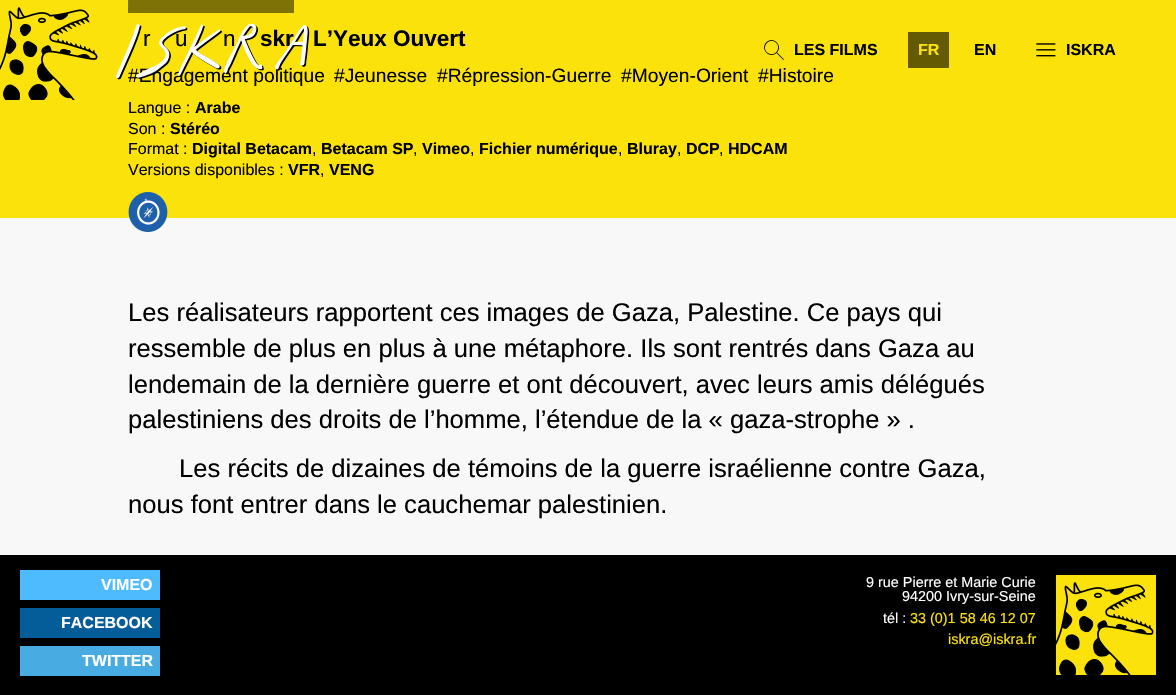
void draw(SkCanvas* canvas) {
	SkPaint paint;
	paint.setAntiAlias(true);
	canvas->clear(0xfff8f8f8);
	paint.setColor(0xfffbe20b);
	canvas->drawRect(SkRect::MakeXYWH(0, 0, 1176, 218), paint);
	paint.setColor(0xff7e7106);
	canvas->drawRect(SkRect::MakeXYWH(128, 0, 166, 13), paint);
	SkFont f1(fontMgr->matchFamilyStyle("Liberation Sans", SkFontStyle::Normal()), 22.5);
	f1.setSubpixel(true);
	paint.setColor(0xff000000);
	canvas->drawString("r", 143, 46, f1, paint);
	canvas->drawString("u", 175, 46, f1, paint);
	canvas->drawString("n", 223, 46, f1, paint);
	SkFont f2(fontMgr->matchFamilyStyle("Liberation Sans", SkFontStyle::Bold()), 22.5);
	f2.setSubpixel(true);
	canvas->drawString("skr", 260, 46, f2, paint);
	canvas->drawString("L’Yeux Ouvert", 313, 46, f2, paint);
	SkFont f3(fontMgr->matchFamilyStyle("Liberation Sans", SkFontStyle::Normal()), 19.25);
	f3.setSubpixel(true);
	canvas->drawString("#Engagement politique", 128, 82, f3, paint);
	canvas->drawString("#Jeunesse", 334, 82, f3, paint);
	canvas->drawString("#Répression-Guerre", 437, 82, f3, paint);
	canvas->drawString("#Moyen-Orient", 621, 82, f3, paint);
	canvas->drawString("#Histoire", 758, 82, f3, paint);
	SkFont f4(fontMgr->matchFamilyStyle("Liberation Sans", SkFontStyle::Normal()), 16);
	f4.setSubpixel(true);
	canvas->drawString("Langue :", 128, 113, f4, paint);
	SkFont f5(fontMgr->matchFamilyStyle("Liberation Sans", SkFontStyle::Bold()), 16);
	f5.setSubpixel(true);
	canvas->drawString("Arabe", 195, 113, f5, paint);
	canvas->drawString("Son :", 128, 134, f4, paint);
	canvas->drawString("Stéréo", 170, 134, f5, paint);
	canvas->drawString("Format :", 128, 154, f4, paint);
	canvas->drawString("Digital Betacam", 192, 154, f5, paint);
	canvas->drawString(",", 312, 154, f4, paint);
	canvas->drawString("Betacam SP", 321, 154, f5, paint);
	canvas->drawString(",", 413, 154, f4, paint);
	canvas->drawString("Vimeo", 422, 154, f5, paint);
	canvas->drawString(",", 470, 154, f4, paint);
	canvas->drawString("Fichier numérique", 479, 154, f5, paint);
	canvas->drawString(",", 618, 154, f4, paint);
	canvas->drawString("Bluray", 627, 154, f5, paint);
	canvas->drawString(",", 677, 154, f4, paint);
	canvas->drawString("DCP", 686, 154, f5, paint);
	canvas->drawString(",", 719, 154, f4, paint);
	canvas->drawString("HDCAM", 728, 154, f5, paint);
	canvas->drawString("Versions disponibles :", 128, 175, f4, paint);
	canvas->drawString("VFR", 288, 175, f5, paint);
	canvas->drawString("VENG", 329, 175, f5, paint);
	canvas->drawString(",", 320, 175, f4, paint);
	canvas->drawImageRect(SkImages::DeferredFromEncodedData(SkData::MakeFromFileName("img1.png")), SkRect::MakeXYWH(128, 192, 40, 40), SkSamplingOptions());
	SkFont f6(fontMgr->matchFamilyStyle("Liberation Sans", SkFontStyle::Normal()), 25.6);
	f6.setSubpixel(true);
	canvas->drawString("Les réalisateurs rapportent ces images de Gaza, Palestine. Ce pays qui", 128, 321, f6, paint);
	canvas->drawString("ressemble de plus en plus à une métaphore. Ils sont rentrés dans Gaza au", 128, 357, f6, paint);
	canvas->drawString("lendemain de la dernière guerre et ont découvert, avec leurs amis délégués", 128, 393, f6, paint);
	canvas->drawString("palestiniens des droits de l’homme, l’étendue de la « gaza-strophe » .", 128, 428, f6, paint);
	canvas->drawString("Les récits de dizaines de témoins de la guerre israélienne contre Gaza,", 179, 477, f6, paint);
	canvas->drawString("nous font entrer dans le cauchemar palestinien.", 128, 513, f6, paint);
	canvas->drawImageRect(SkImages::DeferredFromEncodedData(SkData::MakeFromFileName("img2.png")), SkRect::MakeXYWH(0, 7, 98, 93), SkSamplingOptions());
	canvas->drawImageRect(SkImages::DeferredFromEncodedData(SkData::MakeFromFileName("img3.png")), SkRect::MakeXYWH(115, 23, 195, 57), SkSamplingOptions());
	canvas->drawImageRect(SkImages::DeferredFromEncodedData(SkData::MakeFromFileName("img4.png")), SkRect::MakeXYWH(764, 40, 20, 20), SkSamplingOptions());
	canvas->drawString("LES FILMS", 794, 55, f5, paint);
	paint.setColor(0xff645a04);
	canvas->drawRect(SkRect::MakeXYWH(908, 32, 41, 36), paint);
	paint.setColor(0xfffbe20b);
	canvas->drawString("FR", 918, 55, f5, paint);
	paint.setColor(0xff000000);
	canvas->drawString("EN", 974, 55, f5, paint);
	canvas->drawImageRect(SkImages::DeferredFromEncodedData(SkData::MakeFromFileName("img5.png")), SkRect::MakeXYWH(1036, 43, 20, 14), SkSamplingOptions());
	canvas->drawString("ISKRA", 1066, 55, f5, paint);
	canvas->drawRect(SkRect::MakeXYWH(0, 555, 1176, 140), paint);
	paint.setColor(0xff4ebbff);
	canvas->drawRect(SkRect::MakeXYWH(20, 570, 140, 30), paint);
	paint.setColor(0xffffffff);
	canvas->drawString("VIMEO", 101, 590, f5, paint);
	paint.setColor(0xff045c99);
	canvas->drawRect(SkRect::MakeXYWH(20, 608, 140, 30), paint);
	paint.setColor(0xffffffff);
	canvas->drawString("FACEBOOK", 61, 628, f5, paint);
	paint.setColor(0xff48abe2);
	canvas->drawRect(SkRect::MakeXYWH(20, 646, 140, 30), paint);
	paint.setColor(0xffffffff);
	canvas->drawString("TWITTER", 82, 666, f5, paint);
	SkFont f7(fontMgr->matchFamilyStyle("Liberation Sans", SkFontStyle::Normal()), 14.4);
	f7.setSubpixel(true);
	canvas->drawString("9 rue Pierre et Marie Curie", 866, 587, f7, paint);
	canvas->drawString("94200 Ivry-sur-Seine", 902, 601, f7, paint);
	canvas->drawString("tél :", 883, 623, f7, paint);
	paint.setColor(0xfffbe20b);
	canvas->drawString("33 (0)1 58 46 12 07", 910, 623, f7, paint);
	canvas->drawString("iskra@iskra.fr", 948, 644, f7, paint);
	canvas->drawRect(SkRect::MakeXYWH(1056, 575, 100, 100), paint);
	canvas->drawImageRect(SkImages::DeferredFromEncodedData(SkData::MakeFromFileName("img6.png")), SkRect::MakeXYWH(1056, 582, 98, 93), SkSamplingOptions());
}
